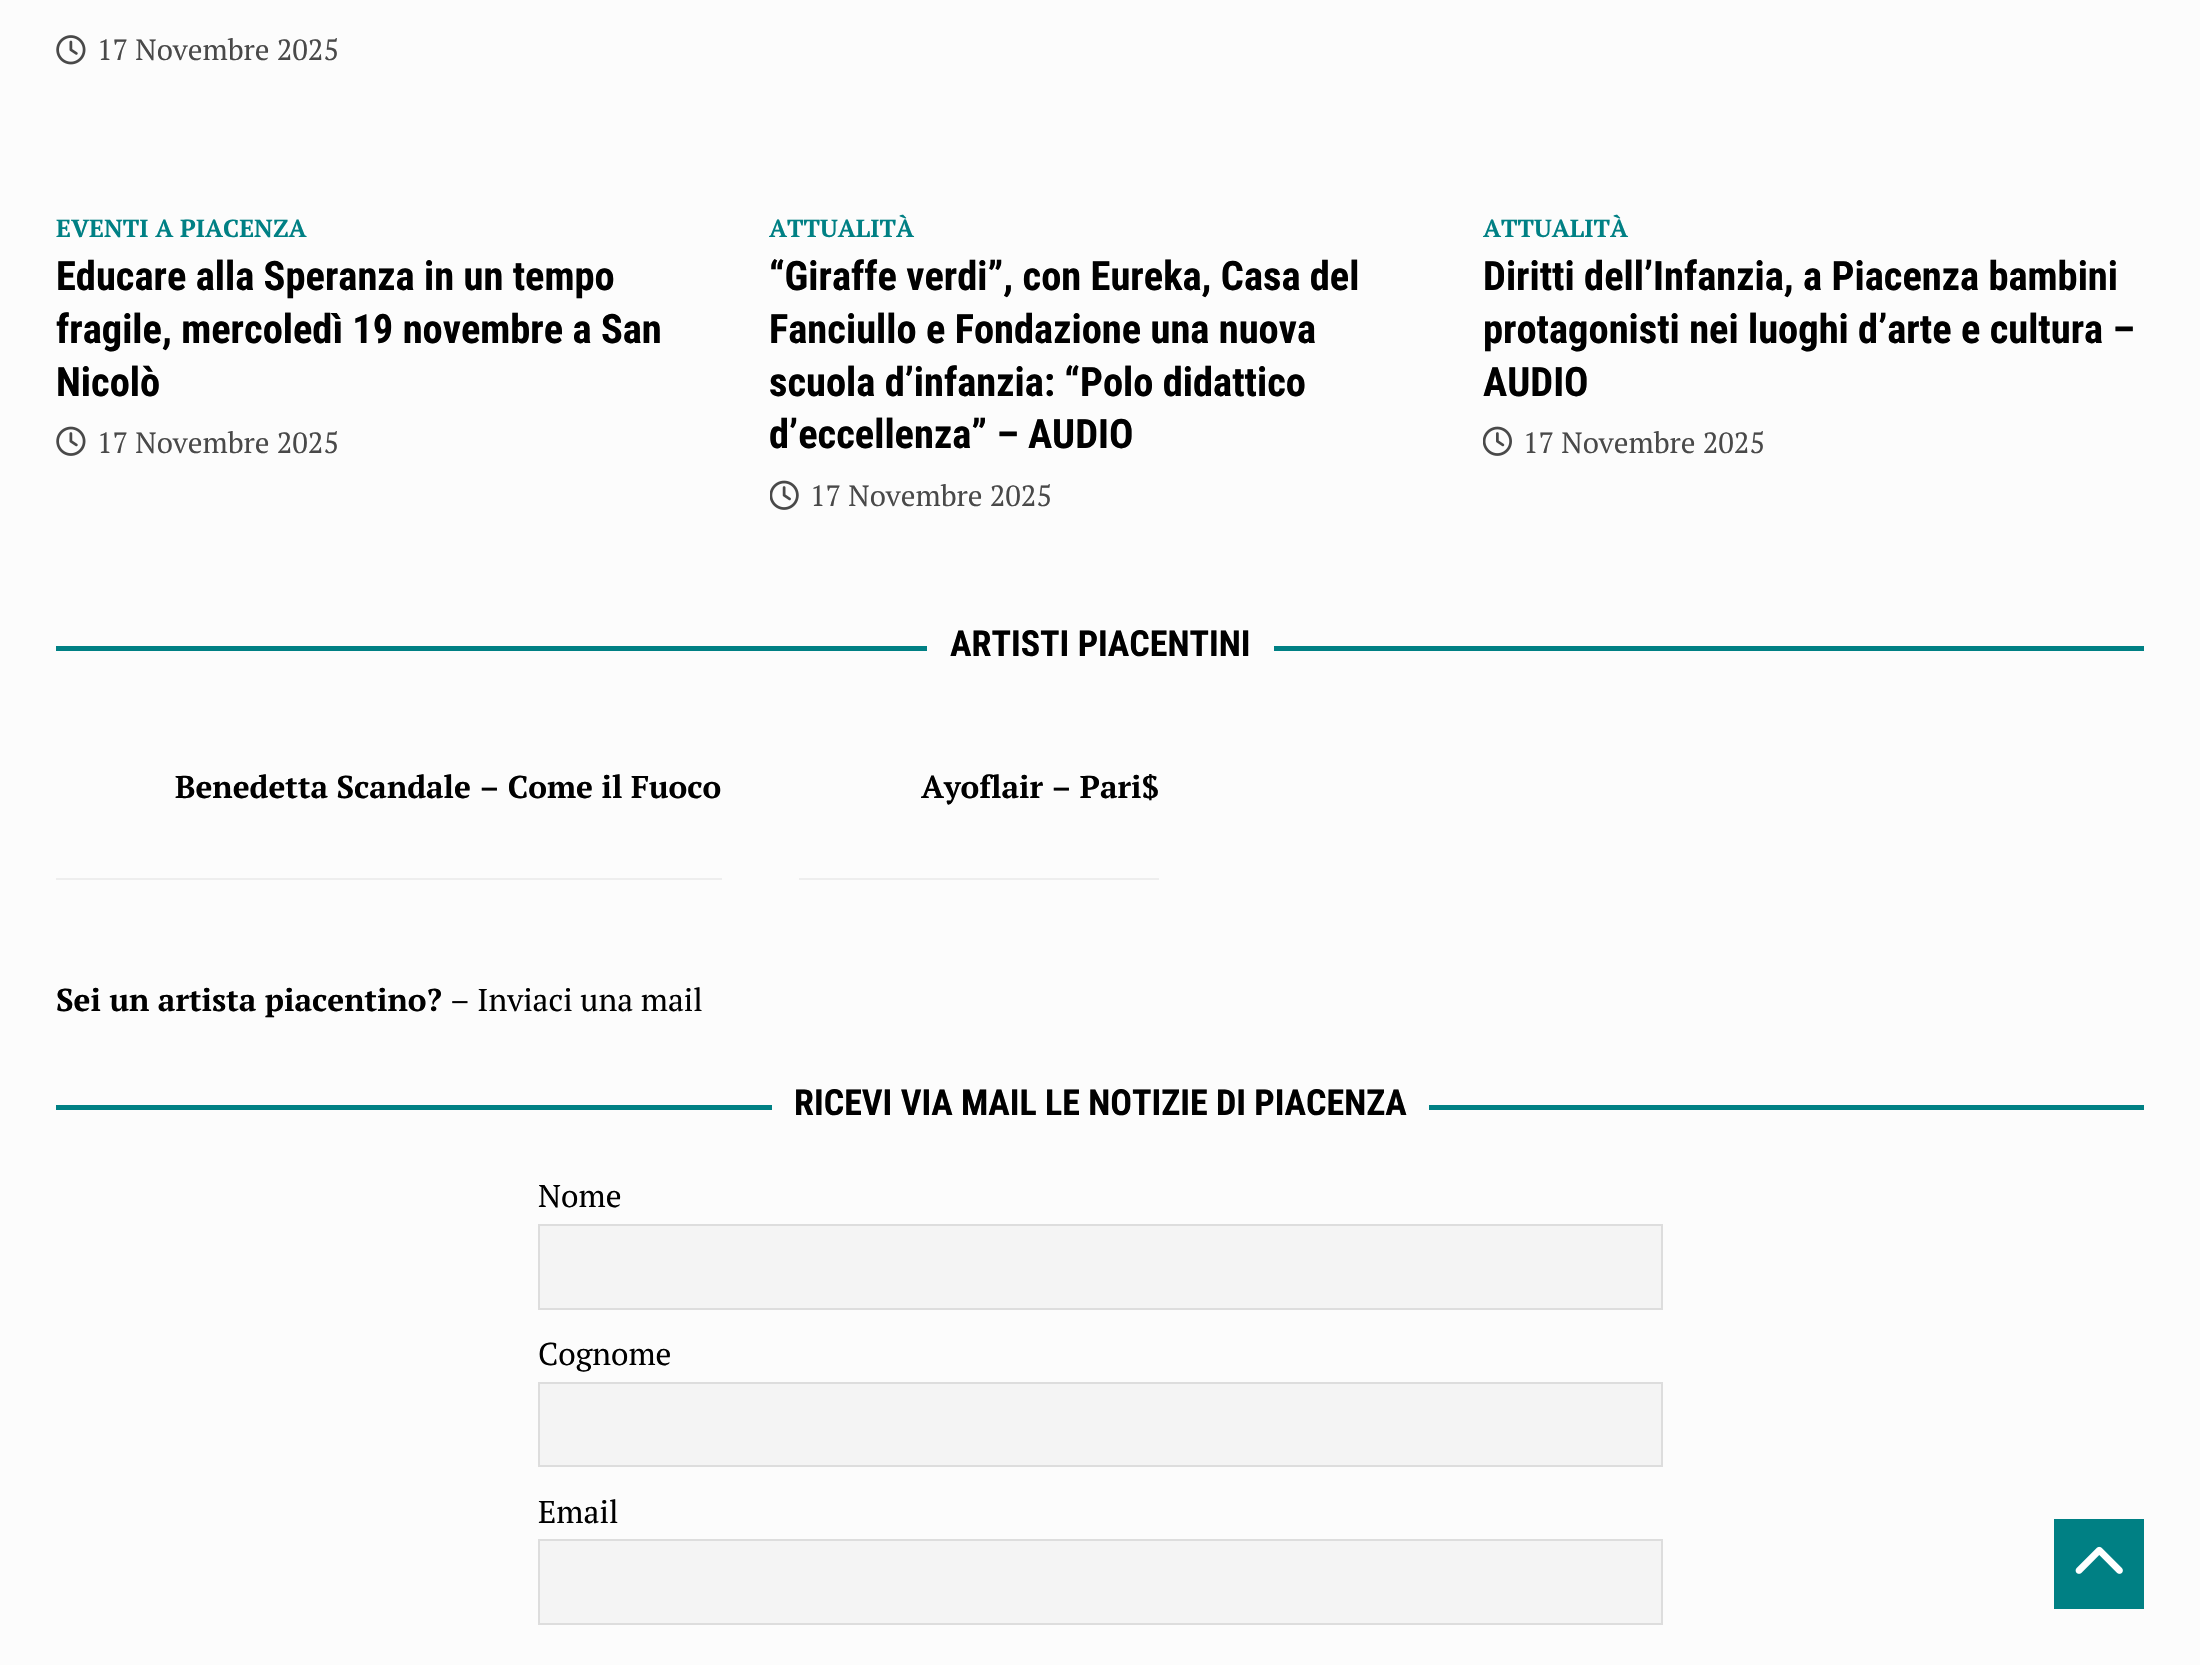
void draw(SkCanvas* canvas) {
	SkPaint paint;
	paint.setAntiAlias(true);
	canvas->clear(0xfffcfcfc);
	canvas->drawImageRect(SkImages::DeferredFromEncodedData(SkData::MakeFromFileName("img1.png")), SkRect::MakeXYWH(56, 35, 30, 30), SkSamplingOptions());
	SkFont f1(fontMgr->matchFamilyStyle("PT Serif", SkFontStyle::Normal()), 29.25);
	f1.setSubpixel(true);
	paint.setColor(0xff494949);
	canvas->drawString("17 Novembre 2025", 97, 60, f1, paint);
	SkFont f2(fontMgr->matchFamilyStyle("PT Serif", SkFontStyle::Bold()), 24.75);
	f2.setSubpixel(true);
	paint.setColor(0xff008084);
	canvas->drawString("EVENTI A PIACENZA", 56, 237, f2, paint);
	SkFont f3(fontMgr->matchFamilyStyle("Roboto Condensed", SkFontStyle::Bold()), 40.5);
	f3.setSubpixel(true);
	paint.setColor(0xff000000);
	canvas->drawString("Educare alla Speranza in un tempo", 56, 290, f3, paint);
	canvas->drawString("fragile, mercoledì 19 novembre a San", 56, 343, f3, paint);
	canvas->drawString("Nicolò", 56, 396, f3, paint);
	canvas->drawImageRect(SkImages::DeferredFromEncodedData(SkData::MakeFromFileName("img2.png")), SkRect::MakeXYWH(56, 426, 30, 30), SkSamplingOptions());
	paint.setColor(0xff494949);
	canvas->drawString("17 Novembre 2025", 97, 453, f1, paint);
	paint.setColor(0xff008084);
	canvas->drawString("ATTUALITÀ", 769, 237, f2, paint);
	paint.setColor(0xff000000);
	canvas->drawString("“Giraffe verdi”, con Eureka, Casa del", 769, 290, f3, paint);
	canvas->drawString("Fanciullo e Fondazione una nuova", 769, 343, f3, paint);
	canvas->drawString("scuola d’infanzia: “Polo didattico", 769, 396, f3, paint);
	canvas->drawString("d’eccellenza” – AUDIO", 769, 448, f3, paint);
	canvas->drawImageRect(SkImages::DeferredFromEncodedData(SkData::MakeFromFileName("img3.png")), SkRect::MakeXYWH(770, 480, 29, 30), SkSamplingOptions());
	paint.setColor(0xff494949);
	canvas->drawString("17 Novembre 2025", 810, 506, f1, paint);
	paint.setColor(0xff008084);
	canvas->drawString("ATTUALITÀ", 1483, 237, f2, paint);
	paint.setColor(0xff000000);
	canvas->drawString("Diritti dell’Infanzia, a Piacenza bambini", 1483, 290, f3, paint);
	canvas->drawString("protagonisti nei luoghi d’arte e cultura –", 1483, 343, f3, paint);
	canvas->drawString("AUDIO", 1483, 396, f3, paint);
	canvas->drawImageRect(SkImages::DeferredFromEncodedData(SkData::MakeFromFileName("img4.png")), SkRect::MakeXYWH(1483, 426, 29, 30), SkSamplingOptions());
	paint.setColor(0xff494949);
	canvas->drawString("17 Novembre 2025", 1523, 453, f1, paint);
	paint.setColor(0xff008084);
	canvas->drawRect(SkRect::MakeXYWH(56, 646, 2088, 5), paint);
	paint.setColor(0xfffcfcfc);
	canvas->drawRect(SkRect::MakeXYWH(927, 646, 347, 5), paint);
	SkFont f4(fontMgr->matchFamilyStyle("Roboto Condensed", SkFontStyle::Bold()), 36);
	f4.setSubpixel(true);
	paint.setColor(0xff000000);
	canvas->drawString("ARTISTI PIACENTINI", 950, 656, f4, paint);
	paint.setColor(0xffeeeeee);
	canvas->drawRect(SkRect::MakeXYWH(56, 878, 666, 2), paint);
	SkFont f5(fontMgr->matchFamilyStyle("PT Serif", SkFontStyle::Bold()), 31.5);
	f5.setSubpixel(true);
	paint.setColor(0xff000000);
	canvas->drawString("Benedetta Scandale – Come il Fuoco", 175, 798, f5, paint);
	paint.setColor(0xffeeeeee);
	canvas->drawRect(SkRect::MakeXYWH(799, 878, 360, 2), paint);
	paint.setColor(0xff000000);
	canvas->drawString("Ayoflair – Pari$", 921, 798, f5, paint);
	canvas->drawString("Sei un artista piacentino?", 56, 1011, f5, paint);
	SkFont f6(fontMgr->matchFamilyStyle("PT Serif", SkFontStyle::Normal()), 31.5);
	f6.setSubpixel(true);
	canvas->drawString("– Inviaci una mail", 450, 1011, f6, paint);
	paint.setColor(0xff008084);
	canvas->drawRect(SkRect::MakeXYWH(56, 1105, 2088, 5), paint);
	paint.setColor(0xfffcfcfc);
	canvas->drawRect(SkRect::MakeXYWH(772, 1105, 657, 5), paint);
	paint.setColor(0xff000000);
	canvas->drawString("RICEVI VIA MAIL LE NOTIZIE DI PIACENZA", 794, 1115, f4, paint);
	canvas->drawString("Nome", 538, 1207, f6, paint);
	paint.setColor(0xfff4f4f4);
	canvas->drawRect(SkRect::MakeXYWH(539, 1225, 1123, 84), paint);
	paint.setStroke(true);
	paint.setStrokeWidth(2);
	paint.setColor(0xffdddddd);
	canvas->drawRect(SkRect::MakeXYWH(539, 1225, 1123, 84), paint);
	paint.setStroke(false);
	paint.setColor(0xff000000);
	canvas->drawString("Cognome", 538, 1365, f6, paint);
	paint.setColor(0xfff4f4f4);
	canvas->drawRect(SkRect::MakeXYWH(539, 1383, 1123, 83), paint);
	paint.setStroke(true);
	paint.setColor(0xffdddddd);
	canvas->drawRect(SkRect::MakeXYWH(539, 1383, 1123, 83), paint);
	paint.setStroke(false);
	paint.setColor(0xff000000);
	canvas->drawString("Email", 538, 1523, f6, paint);
	paint.setColor(0xfff4f4f4);
	canvas->drawRect(SkRect::MakeXYWH(539, 1540, 1123, 84), paint);
	paint.setStroke(true);
	paint.setColor(0xffdddddd);
	canvas->drawRect(SkRect::MakeXYWH(539, 1540, 1123, 84), paint);
	paint.setStroke(false);
	paint.setColor(0xff008084);
	canvas->drawRect(SkRect::MakeXYWH(2054, 1519, 90, 90), paint);
	canvas->drawImageRect(SkImages::DeferredFromEncodedData(SkData::MakeFromFileName("img5.png")), SkRect::MakeXYWH(2075, 1546, 48, 28), SkSamplingOptions());
}
